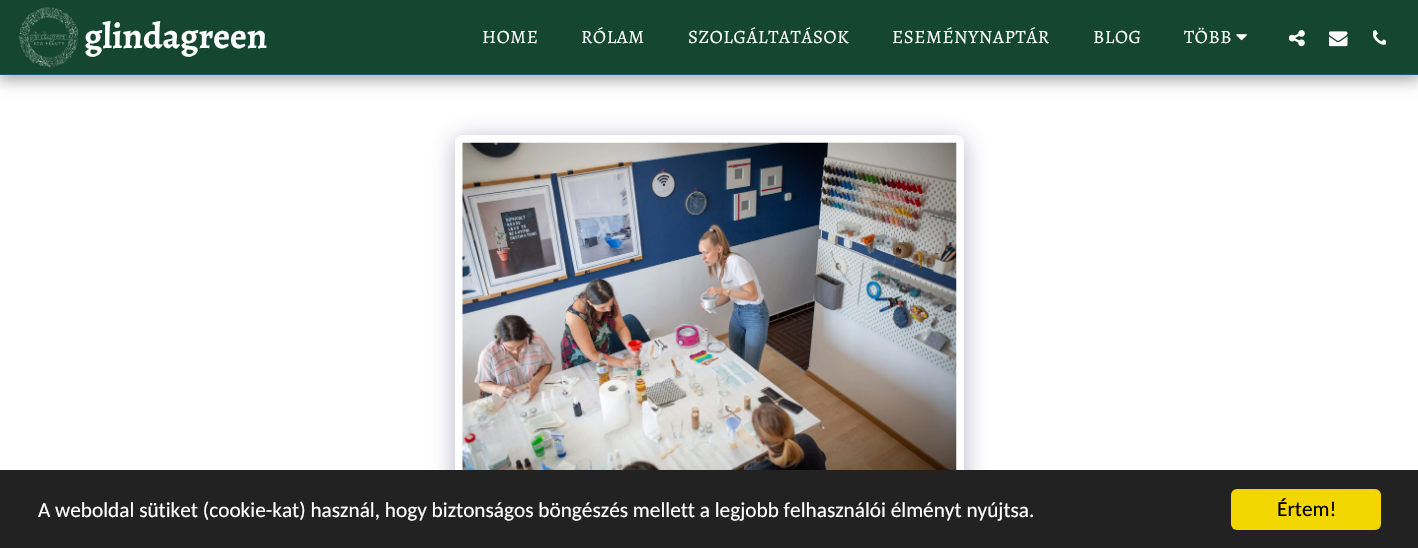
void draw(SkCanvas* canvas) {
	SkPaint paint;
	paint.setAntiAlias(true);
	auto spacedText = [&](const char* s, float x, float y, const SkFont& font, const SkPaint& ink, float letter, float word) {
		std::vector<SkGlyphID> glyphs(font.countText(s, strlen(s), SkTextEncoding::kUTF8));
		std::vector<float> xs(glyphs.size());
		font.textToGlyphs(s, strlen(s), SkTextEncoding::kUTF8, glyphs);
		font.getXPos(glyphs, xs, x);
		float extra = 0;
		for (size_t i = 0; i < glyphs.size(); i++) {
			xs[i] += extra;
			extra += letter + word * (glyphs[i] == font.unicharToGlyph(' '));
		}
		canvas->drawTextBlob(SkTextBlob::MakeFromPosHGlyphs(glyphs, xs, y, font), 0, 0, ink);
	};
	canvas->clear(0xffffffff);
	paint.setColor(0x59000000);
	paint.setMaskFilter(SkMaskFilter::MakeBlur(kNormal_SkBlurStyle, 7.5));
	canvas->drawRect(SkRect::MakeXYWH(-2, 0, 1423, 80), paint);
	paint.setMaskFilter(nullptr);
	paint.setColor(0xff154730);
	canvas->drawRect(SkRect::MakeXYWH(0, 0, 1418, 74), paint);
	paint.setColor(0xff1b5a7a);
	canvas->drawRect(SkRect::MakeXYWH(0, 74, 1418, 1), paint);
	canvas->drawImageRect(SkImages::DeferredFromEncodedData(SkData::MakeFromFileName("img1.png")), SkRect::MakeXYWH(18, 7, 61, 61), SkSamplingOptions());
	SkFont f1(fontMgr->matchFamilyStyle("Alegreya", SkFontStyle::Bold()), 36.25);
	f1.setSubpixel(true);
	paint.setColor(0xffffffff);
	canvas->drawString("glindagreen", 84, 48, f1, paint);
	SkFont f2(fontMgr->matchFamilyStyle("Alegreya", SkFontStyle::Normal()), 18.75);
	f2.setSubpixel(true);
	spacedText("HOME", 482, 43, f2, paint, 0.6, 0);
	spacedText("RÓLAM", 581, 43, f2, paint, 0.6, 0);
	spacedText("SZOLGÁLTATÁSOK", 688, 43, f2, paint, 0.6, 0);
	spacedText("ESEMÉNYNAPTÁR", 892, 43, f2, paint, 0.6, 0);
	spacedText("BLOG", 1093, 43, f2, paint, 0.6, 0);
	spacedText("TÖBB", 1184, 43, f2, paint, 0.6, 0);
	canvas->drawImageRect(SkImages::DeferredFromEncodedData(SkData::MakeFromFileName("img2.png")), SkRect::MakeXYWH(1236, 34, 11, 7), SkSamplingOptions());
	canvas->drawImageRect(SkImages::DeferredFromEncodedData(SkData::MakeFromFileName("img3.png")), SkRect::MakeXYWH(1289, 30, 16, 17), SkSamplingOptions());
	canvas->drawImageRect(SkImages::DeferredFromEncodedData(SkData::MakeFromFileName("img4.png")), SkRect::MakeXYWH(1329, 31, 19, 16), SkSamplingOptions());
	canvas->drawImageRect(SkImages::DeferredFromEncodedData(SkData::MakeFromFileName("img5.png")), SkRect::MakeXYWH(1373, 30, 13, 15), SkSamplingOptions());
	paint.setColor(0x664d3f7a);
	paint.setMaskFilter(SkMaskFilter::MakeBlur(kNormal_SkBlurStyle, 12.5));
	canvas->drawRoundRect(SkRect::MakeXYWH(455, 139, 509, 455), 8, 8, paint);
	paint.setMaskFilter(nullptr);
	paint.setColor(0xffffffff);
	canvas->drawRoundRect(SkRect::MakeXYWH(455, 135, 509, 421), 8, 8, paint);
	canvas->drawImageRect(SkImages::DeferredFromEncodedData(SkData::MakeFromFileName("img6.png")), SkRect::MakeXYWH(462, 142, 495, 328), SkSamplingOptions());
	paint.setColor(0xff222222);
	canvas->drawRect(SkRect::MakeXYWH(0, 470, 1418, 78), paint);
	SkFont f3(fontMgr->matchFamilyStyle("Carlito", SkFontStyle::Normal()), 21.25);
	f3.setSubpixel(true);
	paint.setColor(0xffffffff);
	canvas->drawString("A weboldal sütiket (cookie-kat) használ, hogy biztonságos böngészés mellett a legjobb felhasználói élményt nyújtsa.", 38, 517, f3, paint);
	paint.setColor(0xfff1d600);
	canvas->drawRoundRect(SkRect::MakeXYWH(1231, 489, 150, 41), 6, 6, paint);
	paint.setColor(0xff000000);
	canvas->drawString("Értem!", 1277, 516, f3, paint);
}
